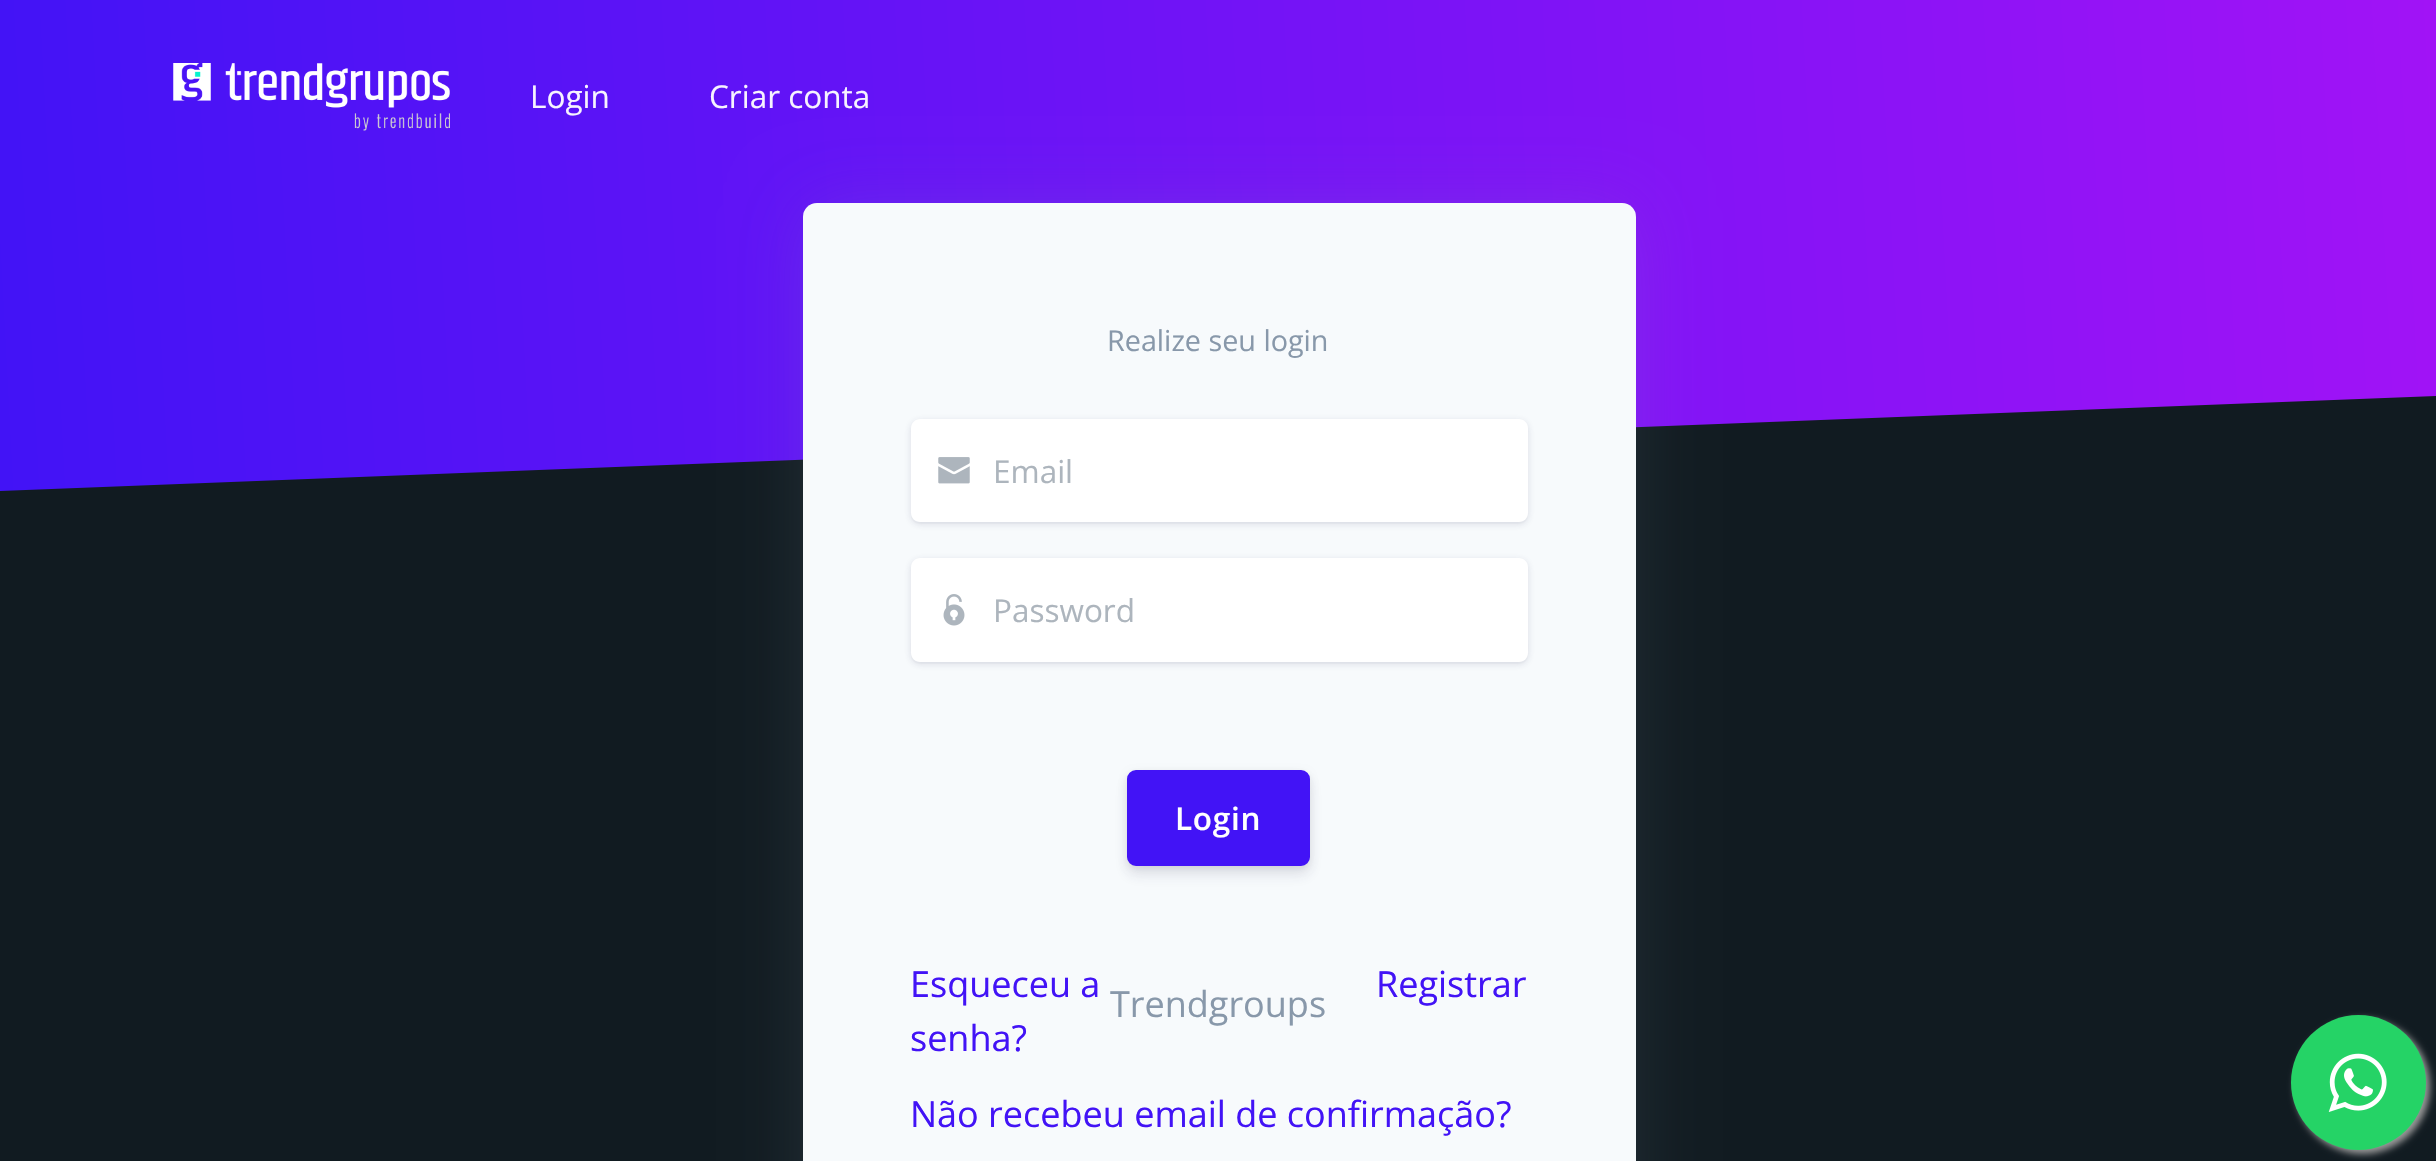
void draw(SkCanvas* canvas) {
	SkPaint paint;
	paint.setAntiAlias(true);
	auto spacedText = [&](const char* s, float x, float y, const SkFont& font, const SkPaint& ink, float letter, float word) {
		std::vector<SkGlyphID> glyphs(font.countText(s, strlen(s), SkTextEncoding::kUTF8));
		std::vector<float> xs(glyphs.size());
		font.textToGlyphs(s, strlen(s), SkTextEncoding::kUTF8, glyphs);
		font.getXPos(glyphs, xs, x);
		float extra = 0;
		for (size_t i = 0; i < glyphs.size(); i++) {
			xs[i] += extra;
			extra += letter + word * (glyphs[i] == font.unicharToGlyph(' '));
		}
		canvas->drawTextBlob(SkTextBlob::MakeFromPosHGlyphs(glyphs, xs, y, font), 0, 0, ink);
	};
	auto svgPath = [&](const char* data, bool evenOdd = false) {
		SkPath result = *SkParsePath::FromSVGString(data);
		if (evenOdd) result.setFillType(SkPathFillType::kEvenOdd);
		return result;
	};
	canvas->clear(0xff111b21);
	{
		const SkColor colors[] = {0xff4213f6, 0xffa113f6};
		const float stops[] = {0, 1};
		const SkPoint ends[] = {{-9, 310}, {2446, 181}};
		paint.setShader(SkGradientShader::MakeLinear(ends, colors, stops, 2, SkTileMode::kClamp));
		paint.setAlpha(255);
	}
	canvas->drawRect(SkRect::MakeXYWH(0, 0, 2436, 491), paint);
	canvas->drawImageRect(SkImages::DeferredFromEncodedData(SkData::MakeFromFileName("img1.png")), SkRect::MakeXYWH(173, 63, 277, 68), SkSamplingOptions());
	SkFont f1(fontMgr->matchFamilyStyle("Open Sans", SkFontStyle::Normal()), 31.5);
	f1.setSubpixel(true);
	paint.setShader(nullptr);
	paint.setColor(0xfff7f3ff);
	canvas->drawString("Login", 530, 108, f1, paint);
	paint.setColor(0xff111b21);
	canvas->drawPath(svgPath("M2436 396V491H0Z"), paint);
	paint.setColor(0x268898aa);
	paint.setMaskFilter(SkMaskFilter::MakeBlur(kNormal_SkBlurStyle, 36));
	canvas->drawRoundRect(SkRect::MakeXYWH(803, 203, 833, 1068), 14, 14, paint);
	paint.setMaskFilter(nullptr);
	paint.setColor(0xfff7f3ff);
	canvas->drawString("Criar conta", 709, 108, f1, paint);
	paint.setColor(0xfff7fafc);
	canvas->drawRoundRect(SkRect::MakeXYWH(803, 203, 833, 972), 14, 14, paint);
	SkFont f2(fontMgr->matchFamilyStyle("Open Sans", SkFontStyle::Normal()), 28.75);
	f2.setSubpixel(true);
	paint.setColor(0xff8898aa);
	canvas->drawString("Realize seu login", 1107, 351, f2, paint);
	paint.setColor(0xfff2f5f7);
	canvas->drawPath(svgPath("M911 428V515C911 520 915 524 920 524H1519C1524 524 1528 520 1528 515V428V513C1528 518 1524 522 1519 522H920C915 522 911 518 911 513Z"), paint);
	paint.setColor(0x2632325d);
	paint.setMaskFilter(SkMaskFilter::MakeBlur(kNormal_SkBlurStyle, 3.5));
	canvas->drawRoundRect(SkRect::MakeXYWH(911, 421, 617, 103), 9, 9, paint);
	paint.setMaskFilter(nullptr);
	paint.setColor(0xffffffff);
	canvas->drawPath(svgPath("M920 419H997V522H920C915 522 911 518 911 513V428C911 423 915 419 920 419Z"), paint);
	canvas->drawImageRect(SkImages::DeferredFromEncodedData(SkData::MakeFromFileName("img2.png")), SkRect::MakeXYWH(938, 457, 32, 27), SkSamplingOptions());
	canvas->drawPath(svgPath("M995 419H1519C1524 419 1528 423 1528 428V513C1528 518 1524 522 1519 522H995Z"), paint);
	paint.setColor(0xffadb5bd);
	canvas->drawString("Email", 993, 483, f1, paint);
	paint.setColor(0xfff2f5f7);
	canvas->drawPath(svgPath("M911 567V655C911 660 915 664 920 664H1519C1524 664 1528 660 1528 655V567V638C1528 645 1531 661 1519 662H920C908 661 911 645 911 638Z"), paint);
	paint.setColor(0x2632325d);
	paint.setMaskFilter(SkMaskFilter::MakeBlur(kNormal_SkBlurStyle, 3.5));
	canvas->drawRoundRect(SkRect::MakeXYWH(911, 560, 617, 104), 9, 9, paint);
	paint.setMaskFilter(nullptr);
	paint.setColor(0xffffffff);
	canvas->drawPath(svgPath("M920 558H997V662H920C915 662 911 658 911 653V567C911 562 915 558 920 558Z"), paint);
	canvas->drawImageRect(SkImages::DeferredFromEncodedData(SkData::MakeFromFileName("img3.png")), SkRect::MakeXYWH(943, 594, 22, 32), SkSamplingOptions());
	canvas->drawPath(svgPath("M995 558H1519C1524 558 1528 562 1528 567V653C1528 658 1524 662 1519 662H995Z"), paint);
	paint.setColor(0xffadb5bd);
	canvas->drawString("Password", 993, 622, f1, paint);
	paint.setColor(0x14000000);
	paint.setMaskFilter(SkMaskFilter::MakeBlur(kNormal_SkBlurStyle, 3.5));
	canvas->drawRoundRect(SkRect::MakeXYWH(1127, 772, 183, 97), 9, 9, paint);
	paint.setMaskFilter(nullptr);
	paint.setColor(0x1c32325d);
	paint.setMaskFilter(SkMaskFilter::MakeBlur(kNormal_SkBlurStyle, 7));
	canvas->drawRoundRect(SkRect::MakeXYWH(1127, 779, 183, 96), 9, 9, paint);
	paint.setMaskFilter(nullptr);
	paint.setColor(0xff4213f6);
	canvas->drawRoundRect(SkRect::MakeXYWH(1128, 771, 181, 94), 8, 8, paint);
	paint.setStroke(true);
	paint.setStrokeWidth(2);
	canvas->drawRoundRect(SkRect::MakeXYWH(1128, 771, 181, 94), 8, 8, paint);
	SkFont f3(fontMgr->matchFamilyStyle("Open Sans", SkFontStyle(600, SkFontStyle::kNormal_Width, SkFontStyle::kUpright_Slant)), 31.5);
	f3.setSubpixel(true);
	paint.setStroke(false);
	paint.setColor(0xffffffff);
	spacedText("Login", 1175, 830, f3, paint, 0.75, 0);
	SkFont f4(fontMgr->matchFamilyStyle("Open Sans", SkFontStyle::Normal()), 36);
	f4.setSubpixel(true);
	paint.setColor(0xff4213f6);
	canvas->drawString("Esqueceu a", 910, 997, f4, paint);
	canvas->drawString("senha?", 910, 1051, f4, paint);
	canvas->drawString("Registrar", 1376, 997, f4, paint);
	canvas->drawString("Não recebeu email de confirmação?", 910, 1127, f4, paint);
	paint.setColor(0xff8898aa);
	canvas->drawString("Trendgroups", 1110, 1017, f4, paint);
	paint.setColor(0xff999999);
	paint.setMaskFilter(SkMaskFilter::MakeBlur(kNormal_SkBlurStyle, 3.5));
	canvas->drawRoundRect(SkRect::MakeXYWH(2295, 1019, 135, 135), 67.5, 67.5, paint);
	paint.setMaskFilter(nullptr);
	paint.setColor(0xff25d366);
	canvas->drawCircle(2358.5, 1082.5, 67.5, paint);
	canvas->drawImageRect(SkImages::DeferredFromEncodedData(SkData::MakeFromFileName("img4.png")), SkRect::MakeXYWH(2328, 1053, 59, 59), SkSamplingOptions());
}
